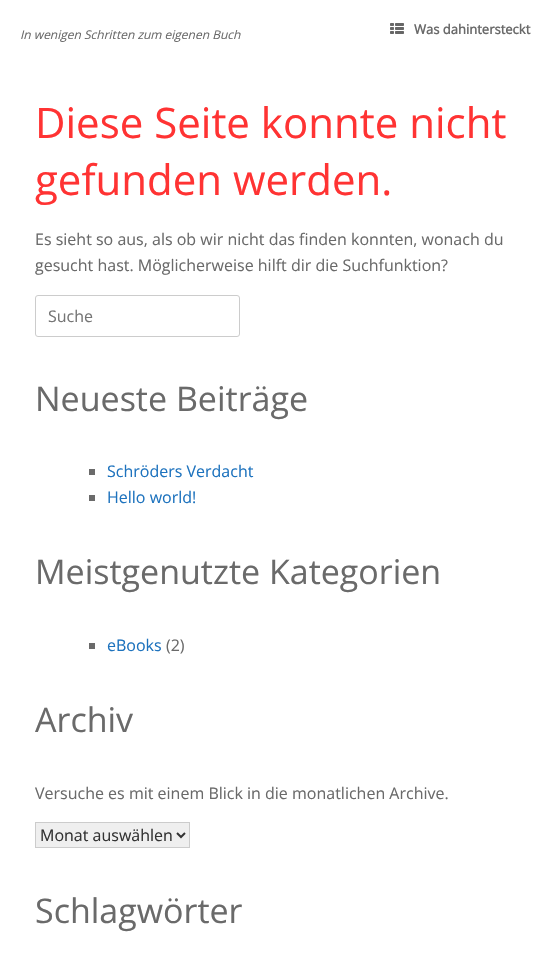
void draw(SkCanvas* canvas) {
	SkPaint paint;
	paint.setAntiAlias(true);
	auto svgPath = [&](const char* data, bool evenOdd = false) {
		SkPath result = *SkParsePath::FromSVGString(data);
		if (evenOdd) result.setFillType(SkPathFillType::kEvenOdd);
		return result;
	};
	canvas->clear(0xffffffff);
	SkFont f1(fontMgr->matchFamilyStyle("Open Sans", SkFontStyle::Italic()), 12);
	f1.setSubpixel(true);
	paint.setColor(0xff6a6a6a);
	canvas->drawString("In wenigen Schritten zum eigenen Buch", 20, 39, f1, paint);
	canvas->drawImageRect(SkImages::DeferredFromEncodedData(SkData::MakeFromFileName("img1.png")), SkRect::MakeXYWH(390, 23, 14, 11), SkSamplingOptions());
	SkFont f2(fontMgr->matchFamilyStyle("Open Sans", SkFontStyle::Bold()), 13);
	f2.setSubpixel(true);
	canvas->drawString("Was dahintersteckt", 414, 34, f2, paint);
	SkFont f3(fontMgr->matchFamilyStyle("Open Sans", SkFontStyle::Normal()), 42);
	f3.setSubpixel(true);
	paint.setColor(0xffff3333);
	canvas->drawString("Diese Seite konnte nicht", 35, 138, f3, paint);
	canvas->drawString("gefunden werden.", 35, 195, f3, paint);
	SkFont f4(fontMgr->matchFamilyStyle("Open Sans", SkFontStyle::Normal()), 16);
	f4.setSubpixel(true);
	paint.setColor(0xff6a6a6a);
	canvas->drawString("Es sieht so aus, als ob wir nicht das finden konnten, wonach du", 35, 245, f4, paint);
	canvas->drawString("gesucht hast. Möglicherweise hilft dir die Suchfunktion?", 35, 271, f4, paint);
	paint.setStroke(true);
	paint.setStrokeWidth(1);
	paint.setColor(0xffcccccc);
	canvas->drawRoundRect(SkRect::MakeXYWH(35.5, 295.5, 204, 41), 2.5, 2.5, paint);
	paint.setStroke(false);
	paint.setColor(0xff757575);
	canvas->drawString("Suche", 48, 322, f4, paint);
	SkFont f5(fontMgr->matchFamilyStyle("Open Sans", SkFontStyle::Normal()), 34);
	f5.setSubpixel(true);
	paint.setColor(0xff6a6a6a);
	canvas->drawString("Neueste Beiträge", 35, 411, f5, paint);
	canvas->drawRect(SkRect::MakeXYWH(89, 469, 6, 6), paint);
	paint.setColor(0xff1e73be);
	canvas->drawString("Schröders Verdacht", 107, 477, f4, paint);
	paint.setColor(0xff6a6a6a);
	canvas->drawRect(SkRect::MakeXYWH(89, 495, 6, 6), paint);
	paint.setColor(0xff1e73be);
	canvas->drawString("Hello world!", 107, 503, f4, paint);
	paint.setColor(0xff6a6a6a);
	canvas->drawString("Meistgenutzte Kategorien", 35, 584, f5, paint);
	canvas->drawRect(SkRect::MakeXYWH(89, 643, 6, 6), paint);
	paint.setColor(0xff1e73be);
	canvas->drawString("eBooks", 107, 651, f4, paint);
	paint.setColor(0xff6a6a6a);
	canvas->drawString("(2)", 166, 651, f4, paint);
	canvas->drawString("Archiv", 35, 732, f5, paint);
	canvas->drawString("Versuche es mit einem Blick in die monatlichen Archive.", 35, 799, f4, paint);
	paint.setColor(0xffefefef);
	canvas->drawRect(SkRect::MakeXYWH(35.5, 822.5, 154, 25), paint);
	paint.setStroke(true);
	paint.setColor(0xffcccccc);
	canvas->drawRect(SkRect::MakeXYWH(35.5, 822.5, 154, 25), paint);
	paint.setStrokeWidth(2);
	paint.setColor(0xff333333);
	canvas->drawPath(svgPath("M177 833L181 837L185 833"), paint);
	paint.setStroke(false);
	canvas->drawString("Monat auswählen", 40, 841, f4, paint);
	paint.setColor(0xff6a6a6a);
	canvas->drawString("Schlagwörter", 35, 923, f5, paint);
}
